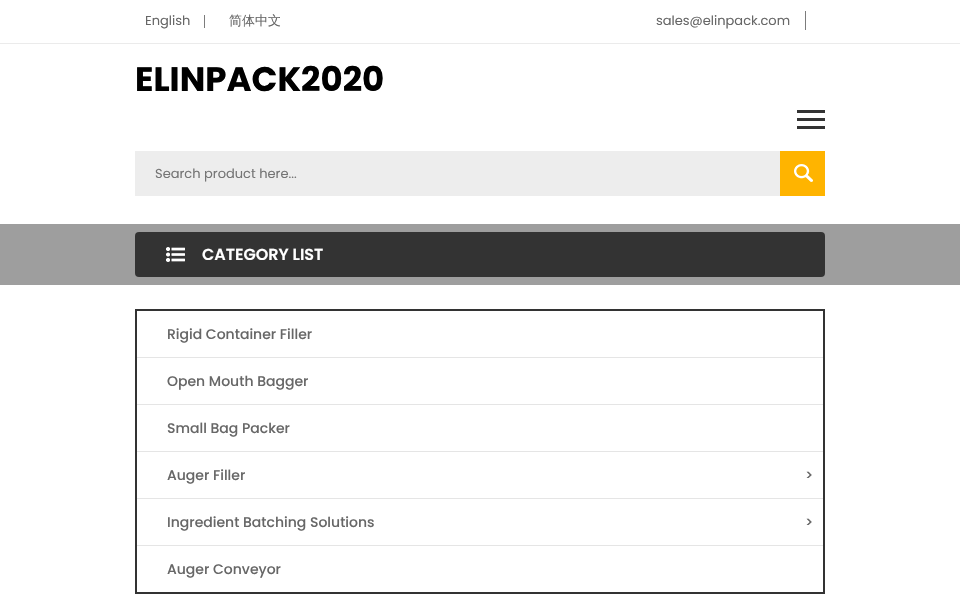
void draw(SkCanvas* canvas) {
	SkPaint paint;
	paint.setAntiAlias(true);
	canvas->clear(0xffffffff);
	paint.setColor(0xffebebeb);
	canvas->drawRect(SkRect::MakeXYWH(0, 43, 960, 1), paint);
	SkFont f1(fontMgr->matchFamilyStyle("Poppins", SkFontStyle::Normal()), 13);
	f1.setSubpixel(true);
	paint.setColor(0xff676767);
	canvas->drawString("English", 145, 25, f1, paint);
	paint.setColor(0xff7c7c7c);
	canvas->drawRect(SkRect::MakeXYWH(204, 15, 1, 13), paint);
	SkFont f2(fontMgr->matchFamilyStyle("WenQuanYi Zen Hei", SkFontStyle(500, SkFontStyle::kNormal_Width, SkFontStyle::kUpright_Slant)), 13);
	f2.setSubpixel(true);
	paint.setColor(0xff676767);
	canvas->drawString("简体中文", 229, 25, f2, paint);
	canvas->drawString("sales@elinpack.com", 656, 25, f1, paint);
	paint.setColor(0xff7c7c7c);
	canvas->drawRect(SkRect::MakeXYWH(805, 11, 1, 19), paint);
	SkFont f3(fontMgr->matchFamilyStyle("Poppins", SkFontStyle::Bold()), 34);
	f3.setSubpixel(true);
	paint.setColor(0xff000000);
	canvas->drawString("ELINPACK2020", 135, 91, f3, paint);
	paint.setColor(0xffededed);
	canvas->drawRect(SkRect::MakeXYWH(135, 151, 645, 45), paint);
	paint.setColor(0xff757575);
	canvas->drawString("Search product here...", 155, 178, f1, paint);
	paint.setColor(0xffffb400);
	canvas->drawRect(SkRect::MakeXYWH(780, 151, 45, 45), paint);
	canvas->drawImageRect(SkImages::DeferredFromEncodedData(SkData::MakeFromFileName("img1.png")), SkRect::MakeXYWH(794, 164, 19, 18), SkSamplingOptions());
	paint.setColor(0xff333333);
	canvas->drawRect(SkRect::MakeXYWH(797, 110, 28, 3), paint);
	canvas->drawRect(SkRect::MakeXYWH(797, 118, 28, 3), paint);
	canvas->drawRect(SkRect::MakeXYWH(797, 126, 28, 3), paint);
	paint.setColor(0xff9e9e9e);
	canvas->drawRect(SkRect::MakeXYWH(0, 224, 960, 61), paint);
	paint.setColor(0xff333333);
	canvas->drawRoundRect(SkRect::MakeXYWH(135, 232, 690, 45), 4, 4, paint);
	canvas->drawImageRect(SkImages::DeferredFromEncodedData(SkData::MakeFromFileName("img2.png")), SkRect::MakeXYWH(166, 247, 19, 15), SkSamplingOptions());
	SkFont f4(fontMgr->matchFamilyStyle("Poppins", SkFontStyle(600, SkFontStyle::kNormal_Width, SkFontStyle::kUpright_Slant)), 16);
	f4.setSubpixel(true);
	paint.setColor(0xffffffff);
	canvas->drawString("CATEGORY LIST", 202, 260, f4, paint);
	paint.setStroke(true);
	paint.setStrokeWidth(2);
	paint.setColor(0xff333333);
	canvas->drawRect(SkRect::MakeXYWH(136, 310, 688, 283), paint);
	paint.setStroke(false);
	paint.setColor(0xffe5e5e5);
	canvas->drawRect(SkRect::MakeXYWH(137, 357, 686, 1), paint);
	SkFont f5(fontMgr->matchFamilyStyle("Poppins", SkFontStyle(500, SkFontStyle::kNormal_Width, SkFontStyle::kUpright_Slant)), 14);
	f5.setSubpixel(true);
	paint.setColor(0xff676767);
	canvas->drawString("Rigid Container Filler", 167, 339, f5, paint);
	paint.setColor(0xffe5e5e5);
	canvas->drawRect(SkRect::MakeXYWH(137, 404, 686, 1), paint);
	paint.setColor(0xff676767);
	canvas->drawString("Open Mouth Bagger", 167, 386, f5, paint);
	paint.setColor(0xffe5e5e5);
	canvas->drawRect(SkRect::MakeXYWH(137, 451, 686, 1), paint);
	paint.setColor(0xff676767);
	canvas->drawString("Small Bag Packer", 167, 433, f5, paint);
	paint.setColor(0xffe5e5e5);
	canvas->drawRect(SkRect::MakeXYWH(137, 498, 686, 1), paint);
	paint.setColor(0xff676767);
	canvas->drawString("Auger Filler", 167, 480, f5, paint);
	canvas->drawString(">", 805, 480, f5, paint);
	paint.setColor(0xffe5e5e5);
	canvas->drawRect(SkRect::MakeXYWH(137, 545, 686, 1), paint);
	paint.setColor(0xff676767);
	canvas->drawString("Ingredient Batching Solutions", 167, 527, f5, paint);
	canvas->drawString(">", 805, 527, f5, paint);
	canvas->drawString("Auger Conveyor", 167, 574, f5, paint);
}
